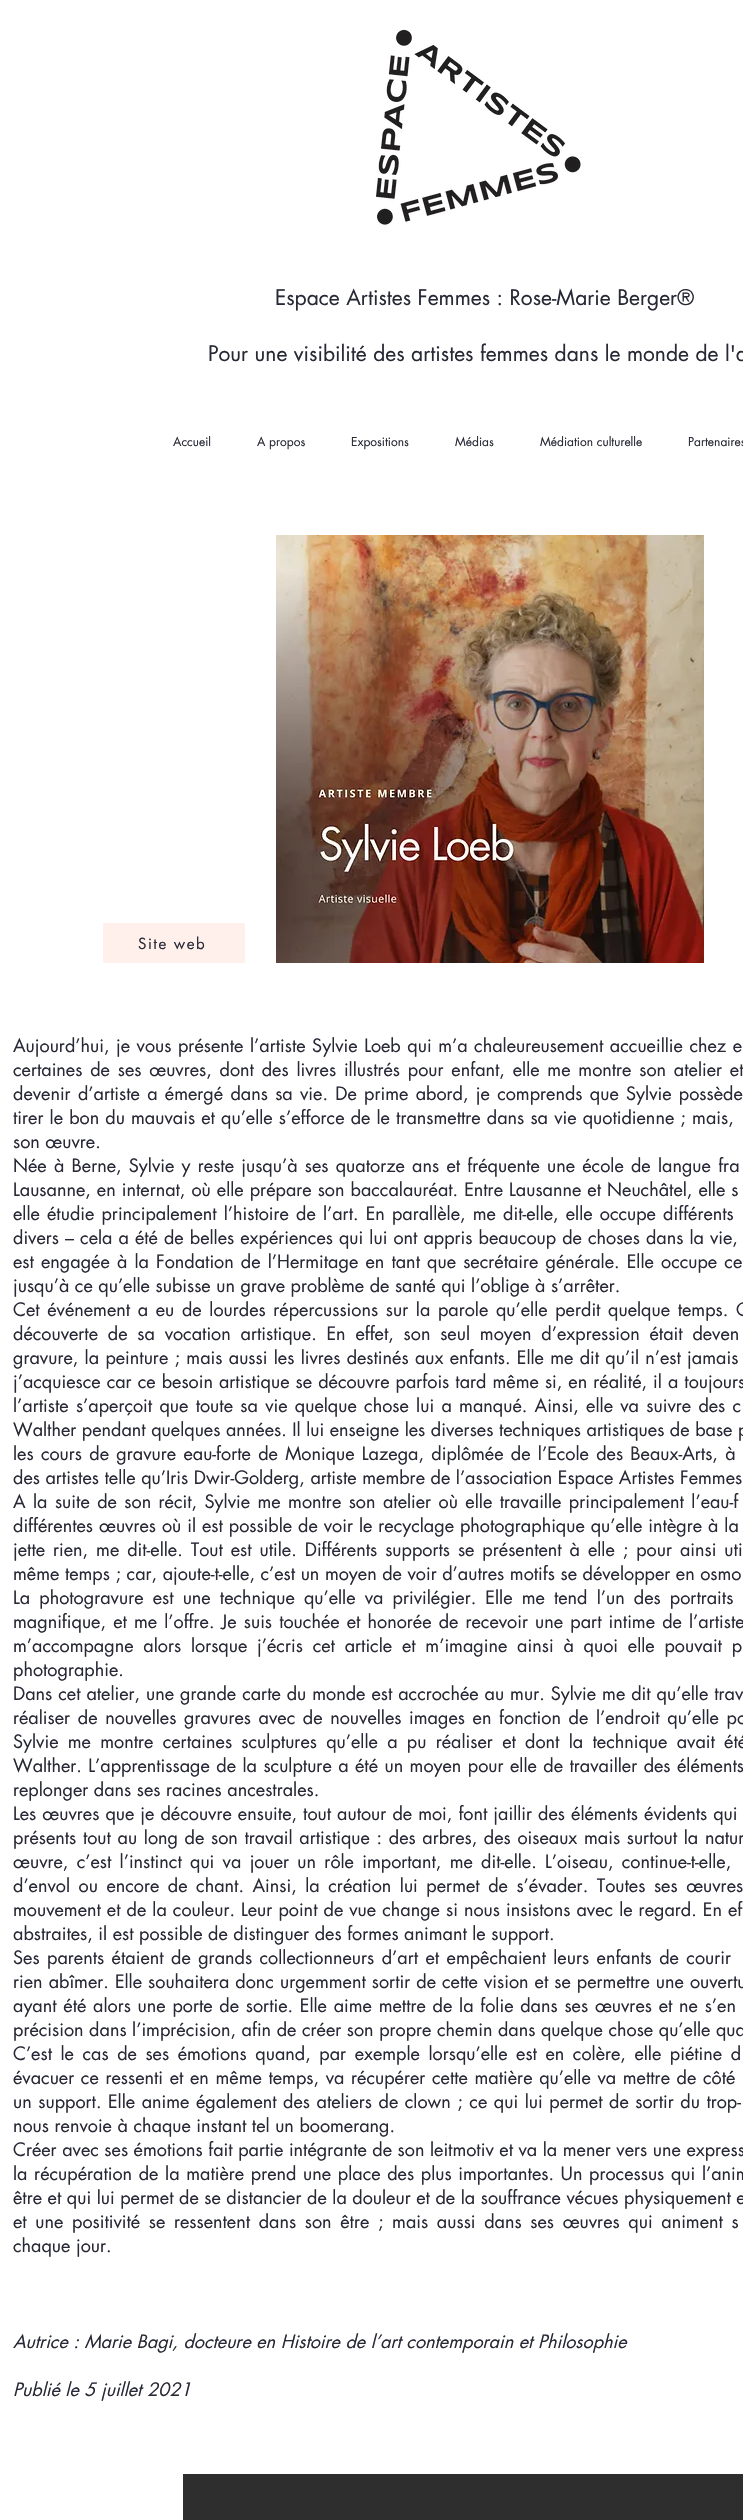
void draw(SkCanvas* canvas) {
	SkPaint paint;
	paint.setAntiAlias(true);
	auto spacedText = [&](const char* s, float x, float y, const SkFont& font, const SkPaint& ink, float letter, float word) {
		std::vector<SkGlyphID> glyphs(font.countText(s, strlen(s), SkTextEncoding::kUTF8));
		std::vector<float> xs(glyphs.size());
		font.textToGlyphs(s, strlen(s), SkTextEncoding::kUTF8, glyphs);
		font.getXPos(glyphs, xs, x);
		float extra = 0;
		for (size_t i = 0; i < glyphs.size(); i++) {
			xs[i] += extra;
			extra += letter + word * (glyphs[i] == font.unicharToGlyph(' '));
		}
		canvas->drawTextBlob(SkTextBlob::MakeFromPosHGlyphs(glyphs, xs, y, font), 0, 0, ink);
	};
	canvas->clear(0xffffffff);
	canvas->drawImageRect(SkImages::DeferredFromEncodedData(SkData::MakeFromFileName("img1.png")), SkRect::MakeXYWH(375, 29, 206, 196), SkSamplingOptions());
	SkFont f1(fontMgr->matchFamilyStyle("futura", SkFontStyle::Normal()), 21);
	f1.setSubpixel(true);
	paint.setColor(0xff282936);
	canvas->drawString("Espace Artistes Femmes : Rose-Marie Berger®", 275, 305, f1, paint);
	canvas->drawString("Pour une visibilité des artistes femmes dans le monde de l'a", 208, 361, f1, paint);
	SkFont f2(fontMgr->matchFamilyStyle("futura", SkFontStyle::Normal()), 12);
	f2.setSubpixel(true);
	canvas->drawString("Accueil", 173, 446, f2, paint);
	canvas->drawString("A propos", 257, 446, f2, paint);
	canvas->drawString("Expositions", 351, 446, f2, paint);
	canvas->drawString("Médias", 455, 446, f2, paint);
	canvas->drawString("Médiation culturelle", 540, 446, f2, paint);
	canvas->drawString("Partenaires", 688, 446, f2, paint);
	paint.setColor(0xfffff0ec);
	canvas->drawRect(SkRect::MakeXYWH(103, 923, 142, 40), paint);
	SkFont f3(fontMgr->matchFamilyStyle("futura", SkFontStyle::Normal()), 15);
	f3.setSubpixel(true);
	paint.setColor(0xff282936);
	spacedText("Site web", 138, 949, f3, paint, 1.5, 0);
	canvas->drawImageRect(SkImages::DeferredFromEncodedData(SkData::MakeFromFileName("img2.png")), SkRect::MakeXYWH(276, 535, 428, 428), SkSamplingOptions());
	SkFont f4(fontMgr->matchFamilyStyle("futura", SkFontStyle::Normal()), 18);
	f4.setSubpixel(true);
	spacedText("Aujourd’hui, je vous présente l’artiste Sylvie Loeb qui m’a chaleureusement accueillie chez e", 13, 1052, f4, paint, 0, 1);
	spacedText("certaines de ses œuvres, dont des livres illustrés pour enfant, elle me montre son atelier et", 13, 1076, f4, paint, 0, 2.25);
	spacedText("devenir d’artiste a émergé dans sa vie. De prime abord, je comprends que Sylvie possède", 13, 1100, f4, paint, 0, 1.75);
	spacedText("tirer le bon du mauvais et qu’elle s’efforce de le transmettre dans sa vie quotidienne ; mais,", 13, 1124, f4, paint, 0, 0.6);
	canvas->drawString("son œuvre.", 13, 1148, f4, paint);
	spacedText("Née à Berne, Sylvie y reste jusqu’à ses quatorze ans et fréquente une école de langue fra", 13, 1172, f4, paint, 0, 1.7);
	spacedText("Lausanne, en internat, où elle prépare son baccalauréat. Entre Lausanne et Neuchâtel, elle s", 13, 1196, f4, paint, 0, 0.5);
	spacedText("elle étudie principalement l’histoire de l’art. En parallèle, me dit-elle, elle occupe différents", 13, 1220, f4, paint, 0, 1.6);
	spacedText("divers – cela a été de belles expériences qui lui ont appris beaucoup de choses dans la vie,", 13, 1244, f4, paint, 0, 0.5);
	spacedText("est engagée à la Fondation de l’Hermitage en tant que secrétaire générale. Elle occupe ce", 13, 1268, f4, paint, 0, 1.6);
	canvas->drawString("jusqu’à ce qu’elle subisse un grave problème de santé qui l’oblige à s’arrêter.", 13, 1292, f4, paint);
	spacedText("Cet événement a eu de lourdes répercussions sur la parole qu’elle perdit quelque temps. C", 13, 1316, f4, paint, 0, 2.1);
	spacedText("découverte de sa vocation artistique. En effet, son seul moyen d’expression était deven", 13, 1340, f4, paint, 0, 4.25);
	spacedText("gravure, la peinture ; mais aussi les livres destinés aux enfants. Elle me dit qu’il n’est jamais", 13, 1364, f4, paint, 0, 0.75);
	spacedText("j’acquiesce car ce besoin artistique se découvre parfois tard même si, en réalité, il a toujours", 13, 1388, f4, paint, 0, 0.5);
	spacedText("l’artiste s’aperçoit que toute sa vie quelque chose lui a manqué. Ainsi, elle va suivre des c", 13, 1412, f4, paint, 0, 1.75);
	canvas->drawString("Walther pendant quelques années. Il lui enseigne les diverses techniques artistiques de base p", 13, 1436, f4, paint);
	spacedText("les cours de gravure eau-forte de Monique Lazega, diplômée de l’Ecole des Beaux-Arts, à", 13, 1460, f4, paint, 0, 1.75);
	canvas->drawString("des artistes telle qu’Iris Dwir-Golderg, artiste membre de l’association Espace Artistes Femmes", 13, 1484, f4, paint);
	spacedText("A la suite de son récit, Sylvie me montre son atelier où elle travaille principalement l’eau-f", 13, 1508, f4, paint, 0, 1.9);
	spacedText("différentes œuvres où il est possible de voir le recyclage photographique qu’elle intègre à la", 13, 1532, f4, paint, 0, 0.4);
	spacedText("jette rien, me dit-elle. Tout est utile. Différents supports se présentent à elle ; pour ainsi uti", 13, 1556, f4, paint, 0, 2.4);
	canvas->drawString("même temps ; car, ajoute-t-elle, c’est un moyen de voir d’autres motifs se développer en osmo", 13, 1580, f4, paint);
	spacedText("La photogravure est une technique qu’elle va privilégier. Elle me tend l’un des portraits", 13, 1604, f4, paint, 0, 3.6);
	spacedText("magnifique, et me l’offre. Je suis touchée et honorée de recevoir une part intime de l’artiste", 13, 1628, f4, paint, 0, 1.6);
	spacedText("m’accompagne alors lorsque j’écris cet article et m’imagine ainsi à quoi elle pouvait p", 13, 1652, f4, paint, 0, 4.25);
	canvas->drawString("photographie.", 13, 1676, f4, paint);
	spacedText("Dans cet atelier, une grande carte du monde est accrochée au mur. Sylvie me dit qu’elle trav", 13, 1700, f4, paint, 0, 0.4);
	spacedText("réaliser de nouvelles gravures avec de nouvelles images en fonction de l’endroit qu’elle po", 13, 1724, f4, paint, 0, 2.1);
	spacedText("Sylvie me montre certaines sculptures qu’elle a pu réaliser et dont la technique avait été", 13, 1748, f4, paint, 0, 3.75);
	spacedText("Walther. L’apprentissage de la sculpture a été un moyen pour elle de travailler des éléments", 13, 1772, f4, paint, 0, 0.9);
	canvas->drawString("replonger dans ses racines ancestrales.", 13, 1796, f4, paint);
	spacedText("Les œuvres que je découvre ensuite, tout autour de moi, font jaillir des éléments évidents qui", 13, 1820, f4, paint, 0, 0.5);
	spacedText("présents tout au long de son travail artistique : des arbres, des oiseaux mais surtout la natur", 13, 1844, f4, paint, 0, 1.1);
	spacedText("œuvre, c’est l’instinct qui va jouer un rôle important, me dit-elle. L’oiseau, continue-t-elle,", 13, 1868, f4, paint, 0, 2.75);
	spacedText("d’envol ou encore de chant. Ainsi, la création lui permet de s’évader. Toutes ses œuvres", 13, 1892, f4, paint, 0, 3);
	spacedText("mouvement et de la couleur. Leur point de vue change si nous insistons avec le regard. En ef", 13, 1916, f4, paint, 0, 0.5);
	canvas->drawString("abstraites, il est possible de distinguer des formes animant le support.", 13, 1940, f4, paint);
	spacedText("Ses parents étaient de grands collectionneurs d’art et empêchaient leurs enfants de courir", 13, 1964, f4, paint, 0, 1.9);
	spacedText("rien abîmer. Elle souhaitera donc urgemment sortir de cette vision et se permettre une ouvertu", 13, 1988, f4, paint, 0, 0.5);
	spacedText("ayant été alors une porte de sortie. Elle aime mettre de la folie dans ses œuvres et ne s’en", 13, 2012, f4, paint, 0, 1.2);
	canvas->drawString("précision dans l’imprécision, afin de créer son propre chemin dans quelque chose qu’elle qua", 13, 2036, f4, paint);
	spacedText("C’est le cas de ses émotions quand, par exemple lorsqu’elle est en colère, elle piétine d", 13, 2060, f4, paint, 0, 3);
	spacedText("évacuer ce ressenti et en même temps, va récupérer cette matière qu’elle va mettre de côté", 13, 2084, f4, paint, 0, 1.1);
	spacedText("un support. Elle anime également des ateliers de clown ; ce qui lui permet de sortir du trop-", 13, 2108, f4, paint, 0, 1);
	canvas->drawString("nous renvoie à chaque instant tel un boomerang.", 13, 2132, f4, paint);
	canvas->drawString("Créer avec ses émotions fait partie intégrante de son leitmotiv et va la mener vers une express", 13, 2156, f4, paint);
	spacedText("la récupération de la matière prend une place des plus importantes. Un processus qui l’anim", 13, 2180, f4, paint, 0, 1.1);
	canvas->drawString("être et qui lui permet de se distancier de la douleur et de la souffrance vécues physiquement e", 13, 2204, f4, paint);
	spacedText("et une positivité se ressentent dans son être ; mais aussi dans ses œuvres qui animent s", 13, 2228, f4, paint, 0, 3.1);
	canvas->drawString("chaque jour.", 13, 2252, f4, paint);
	SkFont f5(fontMgr->matchFamilyStyle("futura", SkFontStyle::Italic()), 18);
	f5.setSubpixel(true);
	canvas->drawString("Autrice : Marie Bagi, docteure en Histoire de l’art contemporain et Philosophie", 13, 2348, f5, paint);
	canvas->drawString("Publié le 5 juillet 2021", 13, 2396, f5, paint);
	paint.setColor(0xff2f2e2e);
	canvas->drawRect(SkRect::MakeXYWH(183, 2474, 560, 46), paint);
}
